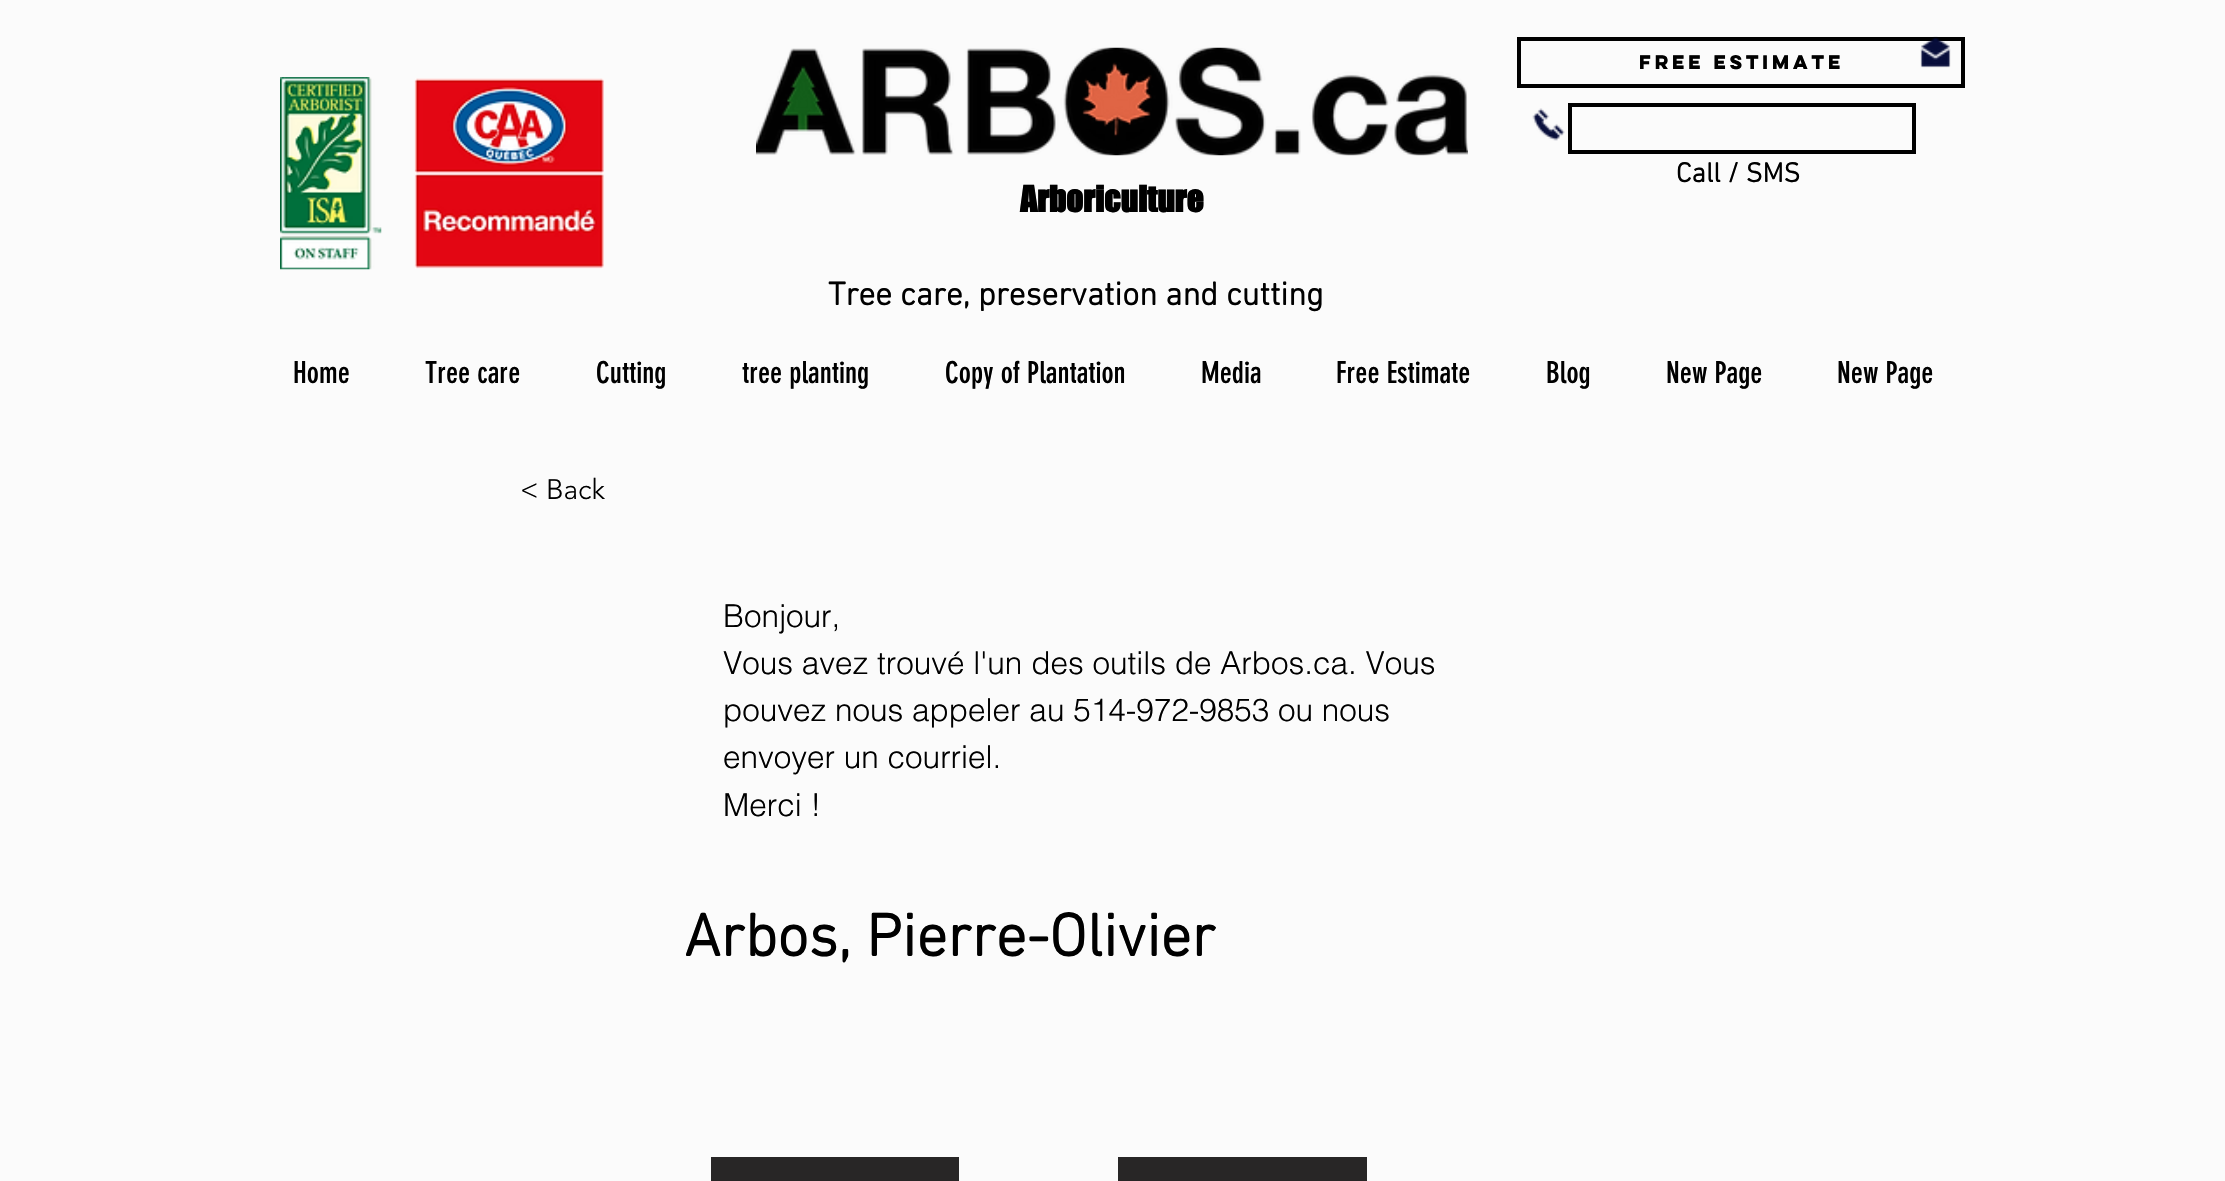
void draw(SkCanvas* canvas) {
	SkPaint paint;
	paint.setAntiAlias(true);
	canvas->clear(0xfffbfbfb);
	canvas->drawImageRect(SkImages::DeferredFromEncodedData(SkData::MakeFromFileName("img1.png")), SkRect::MakeXYWH(756, 47, 712, 109), SkSamplingOptions());
	paint.setStroke(true);
	paint.setStrokeWidth(4);
	paint.setColor(0xff000000);
	canvas->drawRect(SkRect::MakeXYWH(1519, 39, 444, 47), paint);
	SkFont f1(fontMgr->matchFamilyStyle("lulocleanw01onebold", SkFontStyle::Bold()), 17.5);
	f1.setSubpixel(true);
	paint.setStroke(false);
	canvas->drawString("Free estimate", 1639, 69, f1, paint);
	canvas->drawImageRect(SkImages::DeferredFromEncodedData(SkData::MakeFromFileName("img2.png")), SkRect::MakeXYWH(1920, 36, 31, 32), SkSamplingOptions());
	canvas->drawImageRect(SkImages::DeferredFromEncodedData(SkData::MakeFromFileName("img3.png")), SkRect::MakeXYWH(280, 77, 102, 193), SkSamplingOptions());
	canvas->drawImageRect(SkImages::DeferredFromEncodedData(SkData::MakeFromFileName("img4.png")), SkRect::MakeXYWH(414, 78, 190, 191), SkSamplingOptions());
	canvas->drawImageRect(SkImages::DeferredFromEncodedData(SkData::MakeFromFileName("img5.png")), SkRect::MakeXYWH(1532, 108, 33, 33), SkSamplingOptions());
	paint.setStroke(true);
	canvas->drawRect(SkRect::MakeXYWH(1570, 105, 344, 47), paint);
	SkFont f2(fontMgr->matchFamilyStyle("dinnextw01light", SkFontStyle::Bold()), 28);
	f2.setSubpixel(true);
	paint.setStroke(false);
	canvas->drawString("Call / SMS", 1676, 182, f2, paint);
	SkFont f3(fontMgr->matchFamilyStyle("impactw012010", SkFontStyle::Bold()), 33.25);
	f3.setSubpixel(true);
	canvas->drawString("Arboriculture", 1020, 212, f3, paint);
	SkFont f4(fontMgr->matchFamilyStyle("dinnextw01light", SkFontStyle::Bold()), 33.25);
	f4.setSubpixel(true);
	canvas->drawString("Tree care, preservation and cutting", 828, 305, f4, paint);
	SkFont f5(fontMgr->matchFamilyStyle("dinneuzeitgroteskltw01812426", SkFontStyle::Normal()), 29.75);
	f5.setSubpixel(true);
	canvas->drawString("Home", 293, 383, f5, paint);
	canvas->drawString("Tree care", 425, 383, f5, paint);
	canvas->drawString("Cutting", 596, 383, f5, paint);
	canvas->drawString("tree planting", 742, 383, f5, paint);
	canvas->drawString("Copy of Plantation", 945, 383, f5, paint);
	canvas->drawString("Media", 1201, 383, f5, paint);
	canvas->drawString("Free Estimate", 1336, 383, f5, paint);
	canvas->drawString("Blog", 1546, 383, f5, paint);
	canvas->drawString("New Page", 1666, 383, f5, paint);
	canvas->drawString("New Page", 1837, 383, f5, paint);
	SkFont f6(fontMgr->matchFamilyStyle("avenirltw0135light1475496", SkFontStyle(300, SkFontStyle::kNormal_Width, SkFontStyle::kUpright_Slant)), 28);
	f6.setSubpixel(true);
	canvas->drawString("< Back", 520, 499, f6, paint);
	SkFont f7(fontMgr->matchFamilyStyle("helvetica", SkFontStyle(300, SkFontStyle::kNormal_Width, SkFontStyle::kUpright_Slant)), 31.5);
	f7.setSubpixel(true);
	canvas->drawString("Bonjour,", 723, 627, f7, paint);
	canvas->drawString("Vous avez trouvé l'un des outils de Arbos.ca. Vous", 723, 674, f7, paint);
	canvas->drawString("pouvez nous appeler au 514-972-9853 ou nous", 723, 721, f7, paint);
	canvas->drawString("envoyer un courriel.", 723, 768, f7, paint);
	canvas->drawString("Merci !", 723, 816, f7, paint);
	SkFont f8(fontMgr->matchFamilyStyle("dinnextw01light", SkFontStyle::Bold()), 61.25);
	f8.setSubpixel(true);
	canvas->drawString("Arbos, Pierre-Olivier", 684, 956, f8, paint);
	paint.setColor(0xff282626);
	canvas->drawRect(SkRect::MakeXYWH(711, 1157, 248, 24), paint);
	canvas->drawRect(SkRect::MakeXYWH(1118, 1157, 249, 24), paint);
}
